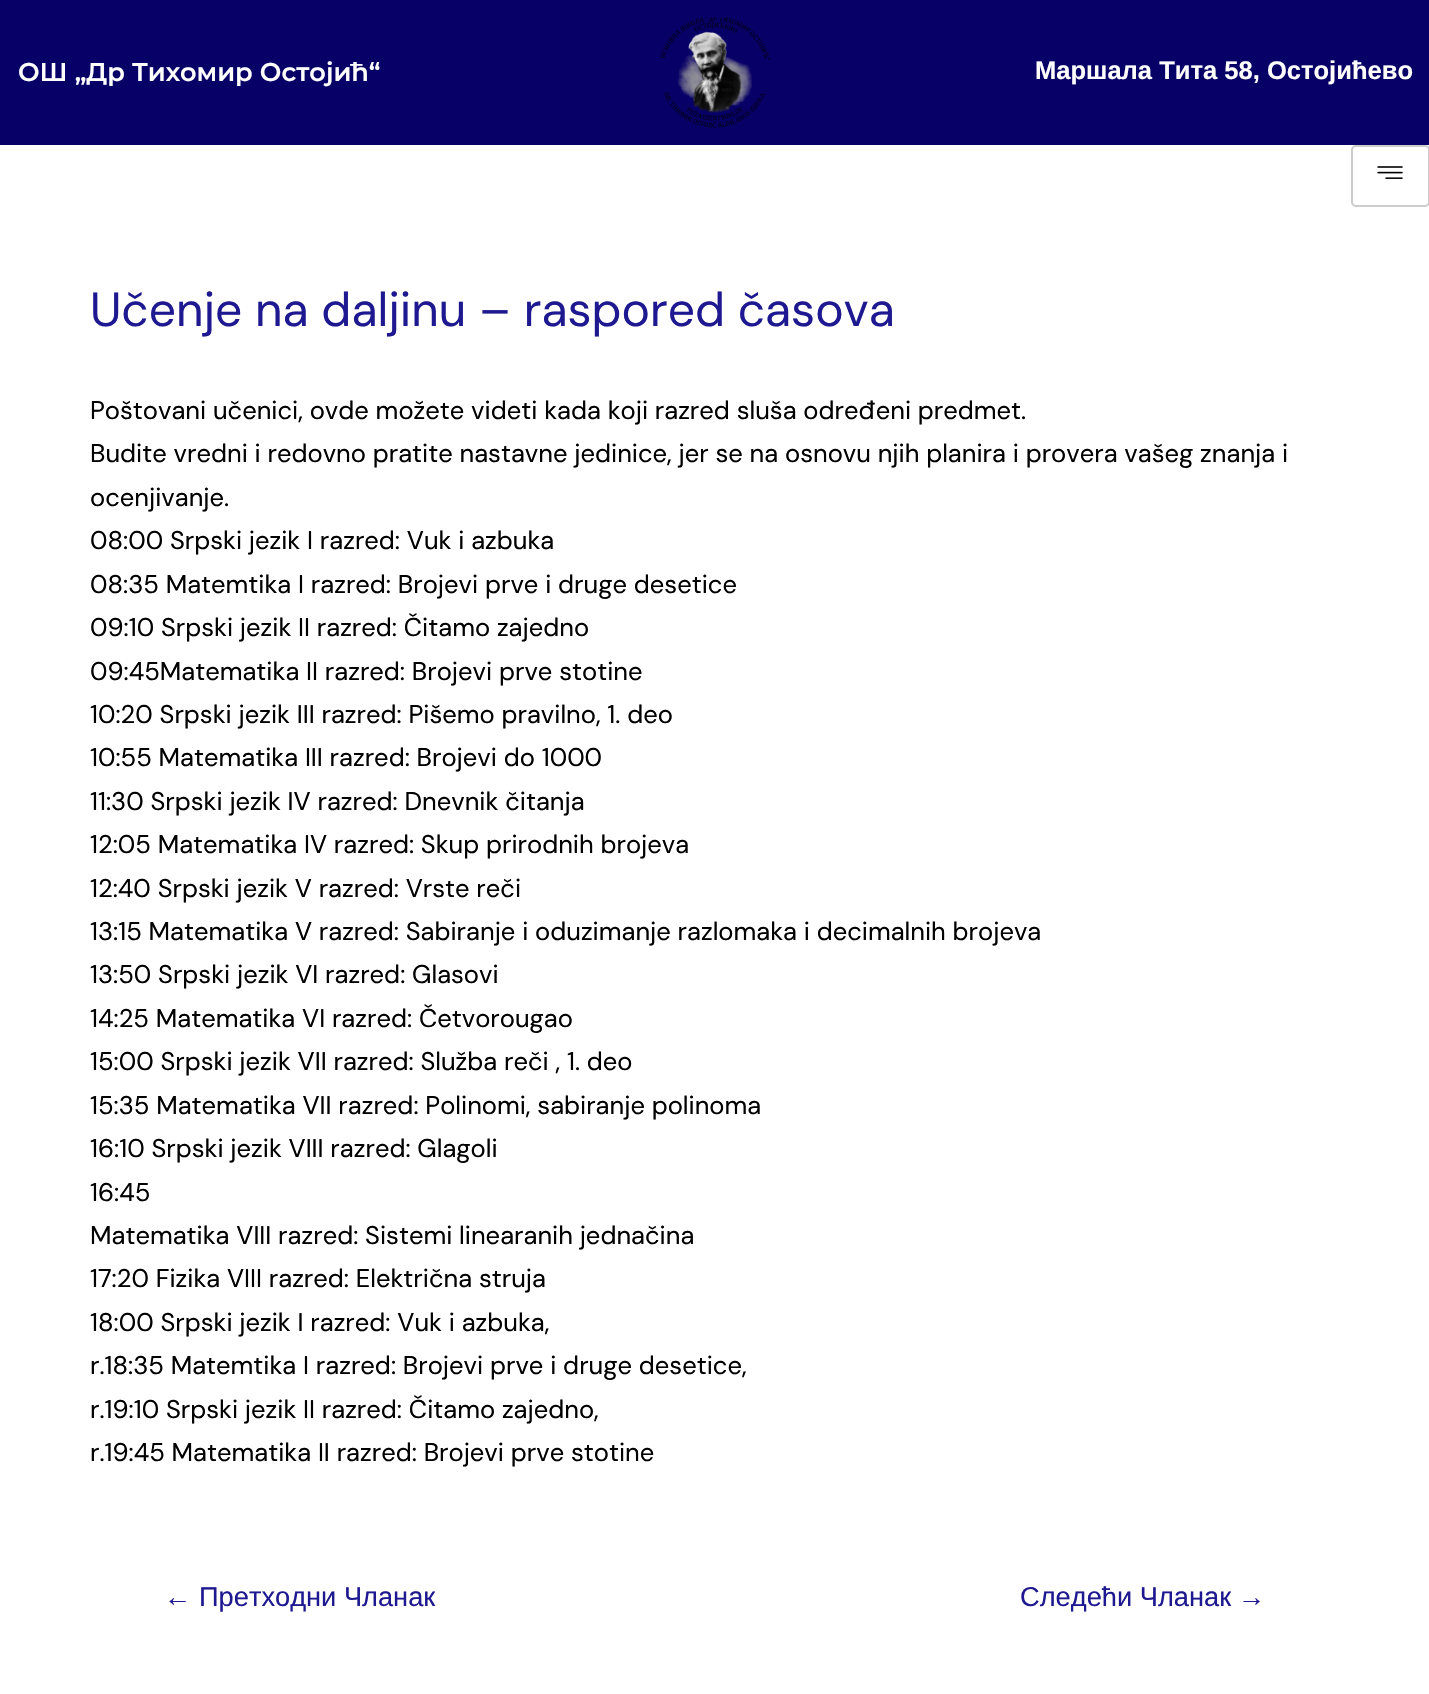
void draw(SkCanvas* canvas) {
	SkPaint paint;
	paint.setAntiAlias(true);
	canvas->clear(0xffffffff);
	paint.setColor(0xff070066);
	canvas->drawRect(SkRect::MakeXYWH(0, 0, 1429, 145), paint);
	SkFont f1(fontMgr->matchFamilyStyle("Montserrat", SkFontStyle(600, SkFontStyle::kNormal_Width, SkFontStyle::kUpright_Slant)), 25.55);
	f1.setSubpixel(true);
	paint.setColor(0xffffffff);
	canvas->drawString("ОШ „Др Тихомир Остојић“", 18, 81, f1, paint);
	canvas->drawImageRect(SkImages::DeferredFromEncodedData(SkData::MakeFromFileName("img1.png")), SkRect::MakeXYWH(659, 17, 111, 111), SkSamplingOptions());
	SkFont f2(fontMgr->matchFamilyStyle("Liberation Sans", SkFontStyle::Bold()), 25.55);
	f2.setSubpixel(true);
	canvas->drawString("Маршала Тита 58, Остојићево", 1035, 79, f2, paint);
	paint.setStroke(true);
	paint.setStrokeWidth(2);
	paint.setColor(0xffcccccc);
	canvas->drawRoundRect(SkRect::MakeXYWH(1352, 146, 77, 60), 4, 4, paint);
	canvas->drawImageRect(SkImages::DeferredFromEncodedData(SkData::MakeFromFileName("img2.png")), SkRect::MakeXYWH(1377, 166, 26, 13), SkSamplingOptions());
	SkFont f3(fontMgr->matchFamilyStyle("DM Sans", SkFontStyle::Normal()), 47.9);
	f3.setSubpixel(true);
	paint.setStroke(false);
	paint.setColor(0xff1e1990);
	canvas->drawString("Učenje na daljinu – raspored časova", 90, 326, f3, paint);
	SkFont f4(fontMgr->matchFamilyStyle("DM Sans", SkFontStyle::Normal()), 25.55);
	f4.setSubpixel(true);
	paint.setColor(0xff000000);
	canvas->drawString("Poštovani učenici, ovde možete videti kada koji razred sluša određeni predmet.", 90, 419, f4, paint);
	canvas->drawString("Budite vredni i redovno pratite nastavne jedinice, jer se na osnovu njih planira i provera vašeg znanja i", 90, 462, f4, paint);
	canvas->drawString("ocenjivanje.", 90, 506, f4, paint);
	canvas->drawString("08:00 Srpski jezik I razred: Vuk i azbuka", 90, 549, f4, paint);
	canvas->drawString("08:35 Matemtika I razred: Brojevi prve i druge desetice", 90, 593, f4, paint);
	canvas->drawString("09:10 Srpski jezik II razred: Čitamo zajedno", 90, 636, f4, paint);
	canvas->drawString("09:45Matematika II razred: Brojevi prve stotine", 90, 680, f4, paint);
	canvas->drawString("10:20 Srpski jezik III razred: Pišemo pravilno, 1. deo", 90, 723, f4, paint);
	canvas->drawString("10:55 Matematika III razred: Brojevi do 1000", 90, 766, f4, paint);
	canvas->drawString("11:30 Srpski jezik IV razred: Dnevnik čitanja", 90, 810, f4, paint);
	canvas->drawString("12:05 Matematika IV razred: Skup prirodnih brojeva", 90, 853, f4, paint);
	canvas->drawString("12:40 Srpski jezik V razred: Vrste reči", 90, 897, f4, paint);
	canvas->drawString("13:15 Matematika V razred: Sabiranje i oduzimanje razlomaka i decimalnih brojeva", 90, 940, f4, paint);
	canvas->drawString("13:50 Srpski jezik VI razred: Glasovi", 90, 983, f4, paint);
	canvas->drawString("14:25 Matematika VI razred: Četvorougao", 90, 1027, f4, paint);
	canvas->drawString("15:00 Srpski jezik VII razred: Služba reči , 1. deo", 90, 1070, f4, paint);
	canvas->drawString("15:35 Matematika VII razred: Polinomi, sabiranje polinoma", 90, 1114, f4, paint);
	canvas->drawString("16:10 Srpski jezik VIII razred: Glagoli", 90, 1157, f4, paint);
	canvas->drawString("16:45", 90, 1201, f4, paint);
	canvas->drawString("Matematika VIII razred: Sistemi linearanih jednačina", 90, 1244, f4, paint);
	canvas->drawString("17:20 Fizika VIII razred: Električna struja", 90, 1287, f4, paint);
	canvas->drawString("18:00 Srpski jezik I razred: Vuk i azbuka,", 90, 1331, f4, paint);
	canvas->drawString("r.18:35 Matemtika I razred: Brojevi prve i druge desetice,", 90, 1374, f4, paint);
	canvas->drawString("r.19:10 Srpski jezik II razred: Čitamo zajedno,", 90, 1418, f4, paint);
	canvas->drawString("r.19:45 Matematika II razred: Brojevi prve stotine", 90, 1461, f4, paint);
	SkFont f5(fontMgr->matchFamilyStyle("Liberation Sans", SkFontStyle::Normal()), 27.25);
	f5.setSubpixel(true);
	paint.setColor(0xff1e1990);
	canvas->drawString("←", 164, 1606, f5, paint);
	canvas->drawString("Претходни Чланак", 199, 1606, f5, paint);
	canvas->drawString("Следећи Чланак", 1020, 1606, f5, paint);
	canvas->drawString("→", 1238, 1606, f5, paint);
}
